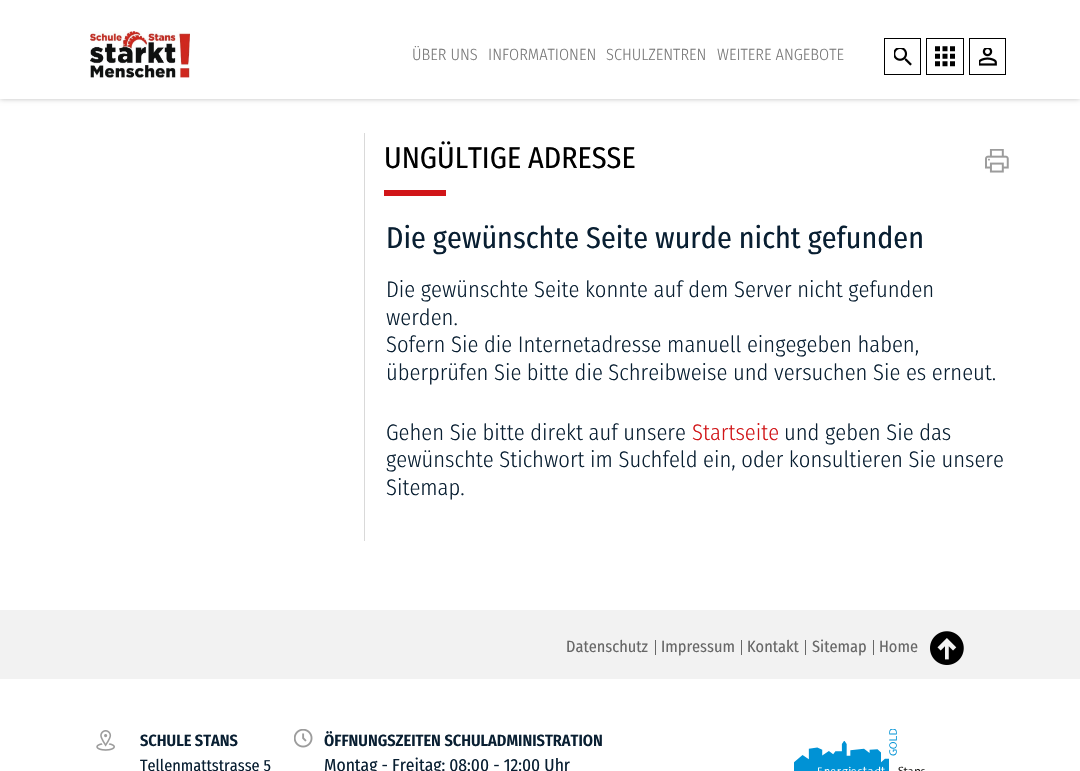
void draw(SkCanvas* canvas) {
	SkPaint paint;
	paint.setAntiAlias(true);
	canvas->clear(0xffffffff);
	paint.setColor(0x40000000);
	paint.setMaskFilter(SkMaskFilter::MakeBlur(kNormal_SkBlurStyle, 2.5));
	canvas->drawRect(SkRect::MakeXYWH(0, 0, 1080, 99), paint);
	paint.setMaskFilter(nullptr);
	paint.setColor(0xffffffff);
	canvas->drawRect(SkRect::MakeXYWH(0, 0, 1080, 99), paint);
	canvas->drawImageRect(SkImages::DeferredFromEncodedData(SkData::MakeFromFileName("img1.png")), SkRect::MakeXYWH(90, 31, 100, 47), SkSamplingOptions());
	SkFont f1(fontMgr->matchFamilyStyle("Fira Sans Condensed", SkFontStyle(300, SkFontStyle::kNormal_Width, SkFontStyle::kUpright_Slant)), 16.25);
	f1.setSubpixel(true);
	paint.setColor(0xff797979);
	canvas->drawString("ÜBER UNS", 412, 60, f1, paint);
	canvas->drawString("INFORMATIONEN", 488, 60, f1, paint);
	canvas->drawString("SCHULZENTREN", 606, 60, f1, paint);
	canvas->drawString("WEITERE ANGEBOTE", 717, 60, f1, paint);
	paint.setStroke(true);
	paint.setStrokeWidth(1);
	paint.setColor(0xff000000);
	canvas->drawRect(SkRect::MakeXYWH(884.5, 38.5, 36, 36), paint);
	canvas->drawImageRect(SkImages::DeferredFromEncodedData(SkData::MakeFromFileName("img2.png")), SkRect::MakeXYWH(894, 48, 18, 18), SkSamplingOptions());
	canvas->drawRect(SkRect::MakeXYWH(926.5, 38.5, 37, 36), paint);
	canvas->drawImageRect(SkImages::DeferredFromEncodedData(SkData::MakeFromFileName("img3.png")), SkRect::MakeXYWH(935, 46, 20, 21), SkSamplingOptions());
	canvas->drawRect(SkRect::MakeXYWH(969.5, 38.5, 36, 36), paint);
	canvas->drawImageRect(SkImages::DeferredFromEncodedData(SkData::MakeFromFileName("img4.png")), SkRect::MakeXYWH(979, 48, 18, 18), SkSamplingOptions());
	paint.setStroke(false);
	paint.setColor(0xffd9d9d9);
	canvas->drawRect(SkRect::MakeXYWH(364, 133, 1, 408), paint);
	SkFont f2(fontMgr->matchFamilyStyle("Fira Sans Condensed", SkFontStyle::Normal()), 30);
	f2.setSubpixel(true);
	paint.setColor(0xff000000);
	canvas->drawString("UNGÜLTIGE ADRESSE", 384, 168, f2, paint);
	paint.setColor(0xffd11518);
	canvas->drawRect(SkRect::MakeXYWH(384, 190, 62, 6), paint);
	canvas->drawImageRect(SkImages::DeferredFromEncodedData(SkData::MakeFromFileName("img5.png")), SkRect::MakeXYWH(985, 149, 24, 24), SkSamplingOptions());
	paint.setColor(0xff091f32);
	canvas->drawString("Die gewünschte Seite wurde nicht gefunden", 386, 248, f2, paint);
	SkFont f3(fontMgr->matchFamilyStyle("Fira Sans Condensed", SkFontStyle(300, SkFontStyle::kNormal_Width, SkFontStyle::kUpright_Slant)), 22.5);
	f3.setSubpixel(true);
	canvas->drawString("Die gewünschte Seite konnte auf dem Server nicht gefunden", 386, 297, f3, paint);
	canvas->drawString("werden.", 386, 325, f3, paint);
	canvas->drawString("Sofern Sie die Internetadresse manuell eingegeben haben,", 386, 352, f3, paint);
	canvas->drawString("überprüfen Sie bitte die Schreibweise und versuchen Sie es erneut.", 386, 380, f3, paint);
	canvas->drawString("Gehen Sie bitte direkt auf unsere", 386, 440, f3, paint);
	paint.setColor(0xffd11518);
	canvas->drawString("Startseite", 692, 440, f3, paint);
	paint.setColor(0xff091f32);
	canvas->drawString("und geben Sie das", 784, 440, f3, paint);
	canvas->drawString("gewünschte Stichwort im Suchfeld ein, oder konsultieren Sie unsere", 386, 467, f3, paint);
	canvas->drawString("Sitemap.", 386, 495, f3, paint);
	paint.setColor(0xfff2f2f2);
	canvas->drawRect(SkRect::MakeXYWH(0, 610, 1080, 69), paint);
	SkFont f4(fontMgr->matchFamilyStyle("Fira Sans Condensed", SkFontStyle::Normal()), 16.25);
	f4.setSubpixel(true);
	paint.setColor(0xff676767);
	canvas->drawString("Datenschutz", 566, 652, f4, paint);
	canvas->drawRect(SkRect::MakeXYWH(655, 640, 1, 15), paint);
	canvas->drawString("Impressum", 661, 652, f4, paint);
	canvas->drawRect(SkRect::MakeXYWH(741, 640, 1, 15), paint);
	canvas->drawString("Kontakt", 747, 652, f4, paint);
	canvas->drawRect(SkRect::MakeXYWH(805, 640, 1, 15), paint);
	canvas->drawString("Sitemap", 812, 652, f4, paint);
	canvas->drawRect(SkRect::MakeXYWH(873, 640, 1, 15), paint);
	canvas->drawString("Home", 879, 652, f4, paint);
	canvas->drawImageRect(SkImages::DeferredFromEncodedData(SkData::MakeFromFileName("img6.png")), SkRect::MakeXYWH(930, 631, 34, 34), SkSamplingOptions());
	canvas->drawImageRect(SkImages::DeferredFromEncodedData(SkData::MakeFromFileName("img7.png")), SkRect::MakeXYWH(96, 730, 19, 21), SkSamplingOptions());
	SkFont f5(fontMgr->matchFamilyStyle("Fira Sans Condensed", SkFontStyle(600, SkFontStyle::kNormal_Width, SkFontStyle::kUpright_Slant)), 16.25);
	f5.setSubpixel(true);
	paint.setColor(0xff091f32);
	canvas->drawString("SCHULE STANS", 140, 746, f5, paint);
	canvas->drawString("Tellenmattstrasse 5", 140, 771, f4, paint);
	canvas->drawImageRect(SkImages::DeferredFromEncodedData(SkData::MakeFromFileName("img8.png")), SkRect::MakeXYWH(294, 729, 19, 19), SkSamplingOptions());
	canvas->drawString("ÖFFNUNGSZEITEN SCHULADMINISTRATION", 324, 746, f5, paint);
	SkFont f6(fontMgr->matchFamilyStyle("Fira Sans Condensed", SkFontStyle::Normal()), 17.5);
	f6.setSubpixel(true);
	canvas->drawString("Montag - Freitag: 08:00 - 12:00 Uhr", 324, 771, f6, paint);
	canvas->drawImageRect(SkImages::DeferredFromEncodedData(SkData::MakeFromFileName("img9.png")), SkRect::MakeXYWH(794, 729, 131, 42), SkSamplingOptions());
}
